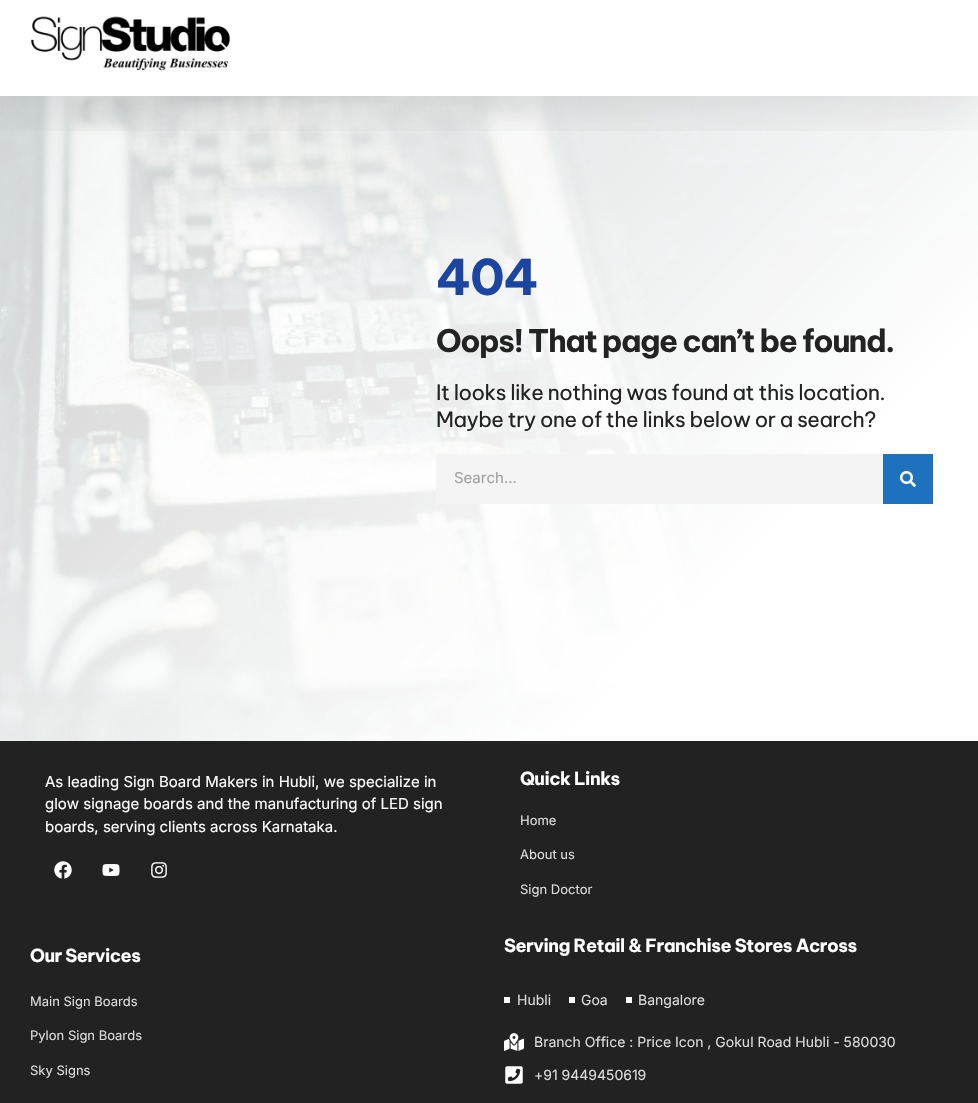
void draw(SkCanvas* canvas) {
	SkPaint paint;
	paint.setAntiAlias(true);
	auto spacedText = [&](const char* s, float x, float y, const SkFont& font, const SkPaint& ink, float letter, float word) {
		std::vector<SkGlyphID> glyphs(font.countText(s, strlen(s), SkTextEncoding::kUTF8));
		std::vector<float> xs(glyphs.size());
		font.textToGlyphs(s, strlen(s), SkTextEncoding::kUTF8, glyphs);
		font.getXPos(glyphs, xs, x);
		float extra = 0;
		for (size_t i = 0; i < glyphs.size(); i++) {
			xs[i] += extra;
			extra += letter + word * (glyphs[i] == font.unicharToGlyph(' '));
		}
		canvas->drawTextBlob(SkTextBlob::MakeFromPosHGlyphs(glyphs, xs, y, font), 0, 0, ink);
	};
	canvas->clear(0xffffffff);
	canvas->drawImageRect(SkImages::DeferredFromEncodedData(SkData::MakeFromFileName("img2.png")), SkRect::MakeXYWH(0, 96, 978, 645), SkSamplingOptions());
	canvas->save();
	canvas->clipRect(SkRect::MakeXYWH(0, 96, 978, 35));
	paint.setColor(0x1a000000);
	paint.setMaskFilter(SkMaskFilter::MakeBlur(kNormal_SkBlurStyle, 30));
	canvas->drawRect(SkRect::MakeXYWH(0, -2, 978, 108), paint);
	paint.setMaskFilter(nullptr);
	canvas->restore();
	canvas->drawImageRect(SkImages::DeferredFromEncodedData(SkData::MakeFromFileName("img1.png")), SkRect::MakeXYWH(31, 16, 199, 55), SkSamplingOptions());
	SkFont f1(fontMgr->matchFamilyStyle("Be Vietnam Pro", SkFontStyle::Bold()), 49);
	f1.setSubpixel(true);
	paint.setColor(0xff1b45a1);
	spacedText("404", 436, 295, f1, paint, -1, 0);
	SkFont f2(fontMgr->matchFamilyStyle("Be Vietnam Pro", SkFontStyle::Bold()), 31);
	f2.setSubpixel(true);
	paint.setColor(0xff232323);
	spacedText("Oops! That page can’t be found.", 436, 352, f2, paint, -1.5, 0);
	SkFont f3(fontMgr->matchFamilyStyle("Be Vietnam Pro", SkFontStyle::Normal()), 21);
	f3.setSubpixel(true);
	spacedText("It looks like nothing was found at this location.", 436, 400, f3, paint, -0.5, 0);
	spacedText("Maybe try one of the links below or a search?", 436, 427, f3, paint, -0.5, 0);
	paint.setColor(0xfff5f4f5);
	canvas->drawRect(SkRect::MakeXYWH(436, 454, 447, 50), paint);
	SkFont f4(fontMgr->matchFamilyStyle("Inter", SkFontStyle::Normal()), 15);
	f4.setSubpixel(true);
	paint.setColor(0xff9f9f9f);
	canvas->drawString("Search...", 454, 483, f4, paint);
	paint.setColor(0xff1e72bd);
	canvas->drawRect(SkRect::MakeXYWH(883, 454, 50, 50), paint);
	canvas->drawImageRect(SkImages::DeferredFromEncodedData(SkData::MakeFromFileName("img3.png")), SkRect::MakeXYWH(900, 471, 16, 16), SkSamplingOptions());
	paint.setColor(0xff222222);
	canvas->drawRect(SkRect::MakeXYWH(0, 741, 978, 362), paint);
	paint.setColor(0xffffffff);
	canvas->drawString("As leading Sign Board Makers in Hubli, we specialize in", 45, 787, f4, paint);
	canvas->drawString("glow signage boards and the manufacturing of LED sign", 45, 809, f4, paint);
	canvas->drawString("boards, serving clients across Karnataka.", 45, 832, f4, paint);
	canvas->drawImageRect(SkImages::DeferredFromEncodedData(SkData::MakeFromFileName("img4.png")), SkRect::MakeXYWH(54, 861, 18, 18), SkSamplingOptions());
	canvas->drawImageRect(SkImages::DeferredFromEncodedData(SkData::MakeFromFileName("img5.png")), SkRect::MakeXYWH(102, 864, 18, 12), SkSamplingOptions());
	canvas->drawImageRect(SkImages::DeferredFromEncodedData(SkData::MakeFromFileName("img6.png")), SkRect::MakeXYWH(151, 862, 16, 16), SkSamplingOptions());
	SkFont f5(fontMgr->matchFamilyStyle("Be Vietnam Pro", SkFontStyle::Bold()), 18);
	f5.setSubpixel(true);
	spacedText("Quick Links", 520, 785, f5, paint, -0.5, 0);
	SkFont f6(fontMgr->matchFamilyStyle("Inter", SkFontStyle::Normal()), 13);
	f6.setSubpixel(true);
	paint.setColor(0xffdcdcde);
	canvas->drawString("Home", 520, 825, f6, paint);
	canvas->drawString("About us", 520, 859, f6, paint);
	canvas->drawString("Sign Doctor", 520, 894, f6, paint);
	paint.setColor(0xffffffff);
	spacedText("Our Services", 30, 962, f5, paint, -0.5, 0);
	paint.setColor(0xffdcdcde);
	canvas->drawString("Main Sign Boards", 30, 1006, f6, paint);
	canvas->drawString("Pylon Sign Boards", 30, 1040, f6, paint);
	canvas->drawString("Sky Signs", 30, 1075, f6, paint);
	paint.setColor(0xffffffff);
	spacedText("Serving Retail & Franchise Stores Across", 504, 952, f5, paint, -0.5, 0);
	canvas->drawRect(SkRect::MakeXYWH(504, 997, 6, 6), paint);
	SkFont f7(fontMgr->matchFamilyStyle("Inter", SkFontStyle::Normal()), 14);
	f7.setSubpixel(true);
	paint.setColor(0xffdcdcde);
	canvas->drawString("Hubli", 517, 1005, f7, paint);
	paint.setColor(0xffffffff);
	canvas->drawRect(SkRect::MakeXYWH(569, 997, 6, 6), paint);
	paint.setColor(0xffdcdcde);
	canvas->drawString("Goa", 581, 1005, f7, paint);
	paint.setColor(0xffffffff);
	canvas->drawRect(SkRect::MakeXYWH(626, 997, 6, 6), paint);
	paint.setColor(0xffdcdcde);
	canvas->drawString("Bangalore", 638, 1005, f7, paint);
	canvas->drawImageRect(SkImages::DeferredFromEncodedData(SkData::MakeFromFileName("img7.png")), SkRect::MakeXYWH(504, 1033, 20, 18), SkSamplingOptions());
	canvas->drawString("Branch Office : Price Icon , Gokul Road Hubli - 580030", 534, 1047, f7, paint);
	canvas->drawImageRect(SkImages::DeferredFromEncodedData(SkData::MakeFromFileName("img8.png")), SkRect::MakeXYWH(505, 1066, 18, 18), SkSamplingOptions());
	canvas->drawString("+91 9449450619", 534, 1080, f7, paint);
}
